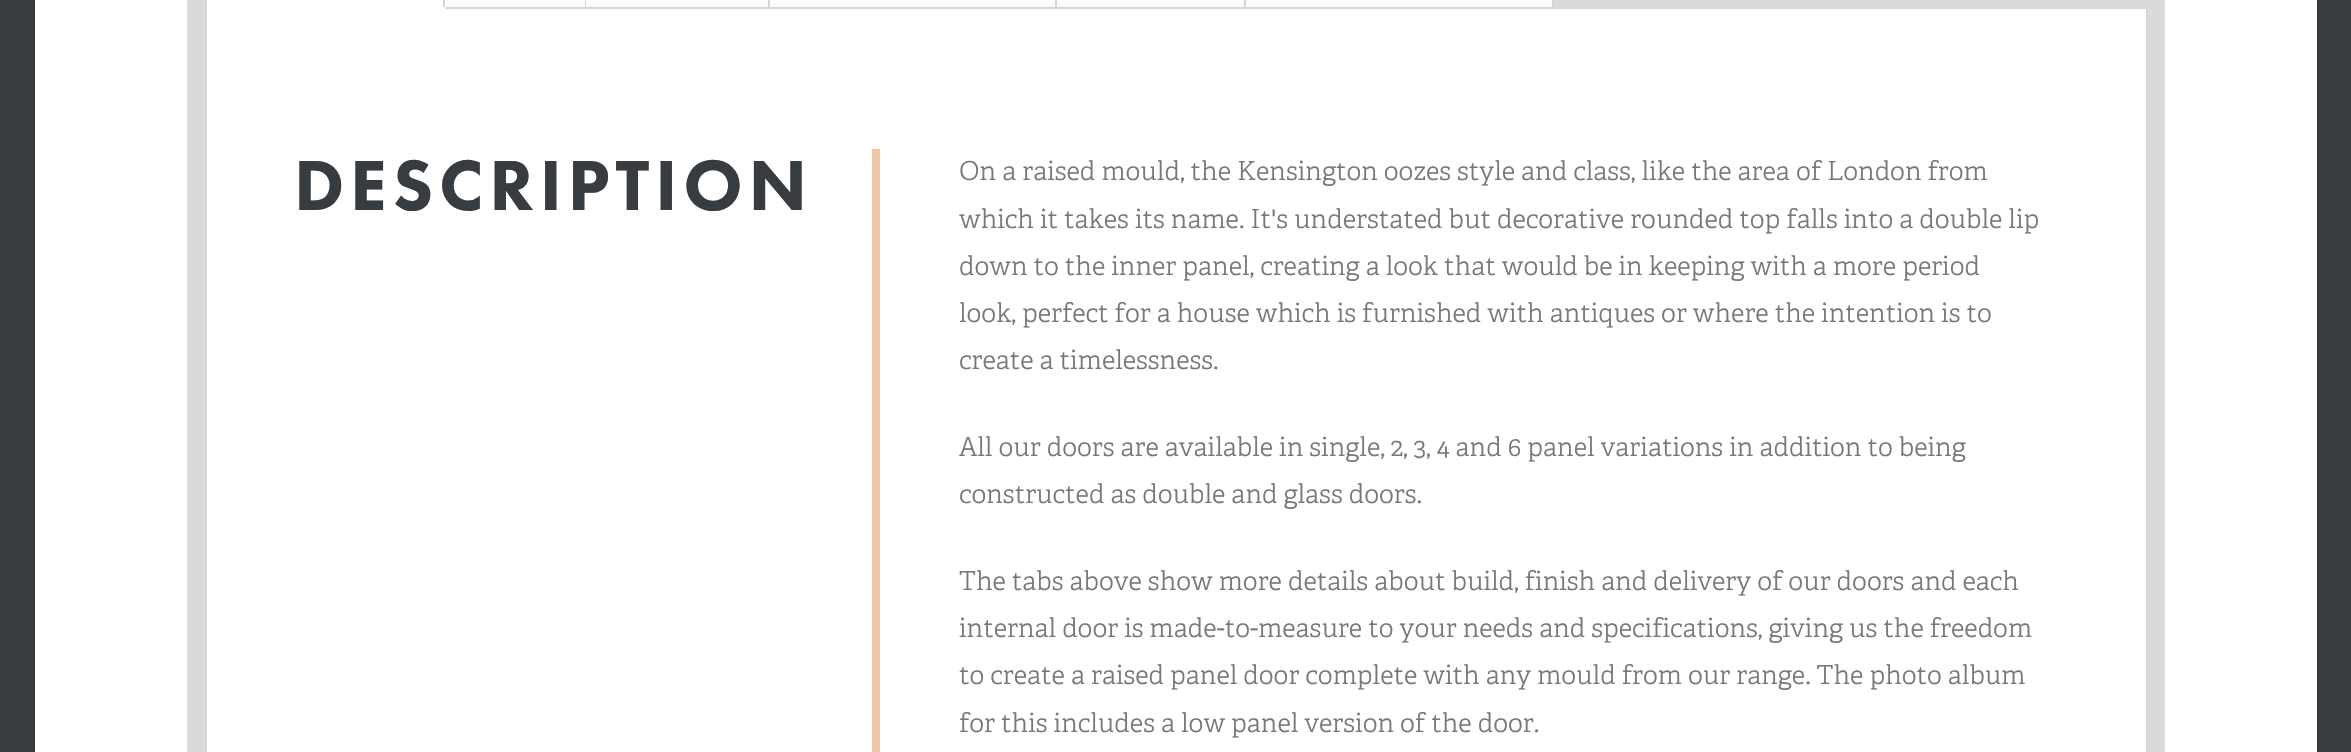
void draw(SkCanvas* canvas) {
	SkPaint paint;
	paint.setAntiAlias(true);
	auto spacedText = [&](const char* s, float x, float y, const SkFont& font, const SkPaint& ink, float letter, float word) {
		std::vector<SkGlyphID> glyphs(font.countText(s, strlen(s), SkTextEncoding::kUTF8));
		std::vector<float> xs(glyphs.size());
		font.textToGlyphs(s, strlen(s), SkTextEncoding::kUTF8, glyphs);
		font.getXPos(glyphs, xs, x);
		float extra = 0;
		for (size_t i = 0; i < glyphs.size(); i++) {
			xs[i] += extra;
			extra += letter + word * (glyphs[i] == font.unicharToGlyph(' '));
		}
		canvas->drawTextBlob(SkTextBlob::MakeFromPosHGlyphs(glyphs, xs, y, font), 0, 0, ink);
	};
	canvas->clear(0xff373c41);
	paint.setColor(0xffffffff);
	canvas->drawRect(SkRect::MakeXYWH(35, 0, 2282, 752), paint);
	paint.setColor(0xffdadada);
	canvas->drawRect(SkRect::MakeXYWH(187, 0, 1978, 752), paint);
	paint.setColor(0xffd6d6d6);
	canvas->drawRect(SkRect::MakeXYWH(445, 7, 1702, 2), paint);
	paint.setColor(0xffffffff);
	canvas->drawRect(SkRect::MakeXYWH(207, 0, 236, 7), paint);
	paint.setColor(0xffd6d6d6);
	canvas->drawRect(SkRect::MakeXYWH(443, 0, 2, 9), paint);
	paint.setColor(0xffffffff);
	canvas->drawRect(SkRect::MakeXYWH(205, 7, 240, 2), paint);
	paint.setColor(0xffd6d6d6);
	canvas->drawRect(SkRect::MakeXYWH(205, 0, 2, 9), paint);
	paint.setColor(0xfffcfcfc);
	canvas->drawRect(SkRect::MakeXYWH(445, 0, 1109, 7), paint);
	paint.setColor(0xffd6d6d6);
	canvas->drawRect(SkRect::MakeXYWH(585, 0, 1, 7), paint);
	canvas->drawRect(SkRect::MakeXYWH(768, 0, 2, 7), paint);
	canvas->drawRect(SkRect::MakeXYWH(1055, 0, 2, 7), paint);
	canvas->drawRect(SkRect::MakeXYWH(1244, 0, 2, 7), paint);
	canvas->drawRect(SkRect::MakeXYWH(1552, 0, 2, 7), paint);
	paint.setColor(0xffffffff);
	canvas->drawRect(SkRect::MakeXYWH(207, 9, 1939, 743), paint);
	paint.setColor(0xffd6d6d6);
	canvas->drawRect(SkRect::MakeXYWH(2146, 9, 2, 743), paint);
	canvas->drawRect(SkRect::MakeXYWH(205, 9, 2, 743), paint);
	SkFont f1(fontMgr->matchFamilyStyle("Futura PT", SkFontStyle(900, SkFontStyle::kNormal_Width, SkFontStyle::kUpright_Slant)), 73.5);
	f1.setSubpixel(true);
	paint.setColor(0xff373c41);
	spacedText("DESCRIPTION", 294, 210, f1, paint, 5.75, 0);
	paint.setColor(0xffefc7a7);
	canvas->drawRect(SkRect::MakeXYWH(872, 149, 8, 603), paint);
	SkFont f2(fontMgr->matchFamilyStyle("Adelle", SkFontStyle(300, SkFontStyle::kNormal_Width, SkFontStyle::kUpright_Slant)), 26.25);
	f2.setSubpixel(true);
	paint.setColor(0xff787878);
	canvas->drawString("On a raised mould, the Kensington oozes style and class, like the area of London from", 959, 180, f2, paint);
	canvas->drawString("which it takes its name. It's understated but decorative rounded top falls into a double lip", 959, 228, f2, paint);
	canvas->drawString("down to the inner panel, creating a look that would be in keeping with a more period", 959, 275, f2, paint);
	canvas->drawString("look, perfect for a house which is furnished with antiques or where the intention is to", 959, 322, f2, paint);
	canvas->drawString("create a timelessness.", 959, 369, f2, paint);
	canvas->drawString("All our doors are available in single, 2, 3, 4 and 6 panel variations in addition to being", 959, 456, f2, paint);
	canvas->drawString("constructed as double and glass doors.", 959, 503, f2, paint);
	canvas->drawString("The tabs above show more details about build, finish and delivery of our doors and each", 959, 590, f2, paint);
	canvas->drawString("internal door is made-to-measure to your needs and specifications, giving us the freedom", 959, 637, f2, paint);
	canvas->drawString("to create a raised panel door complete with any mould from our range. The photo album", 959, 684, f2, paint);
	canvas->drawString("for this includes a low panel version of the door.", 959, 732, f2, paint);
}
